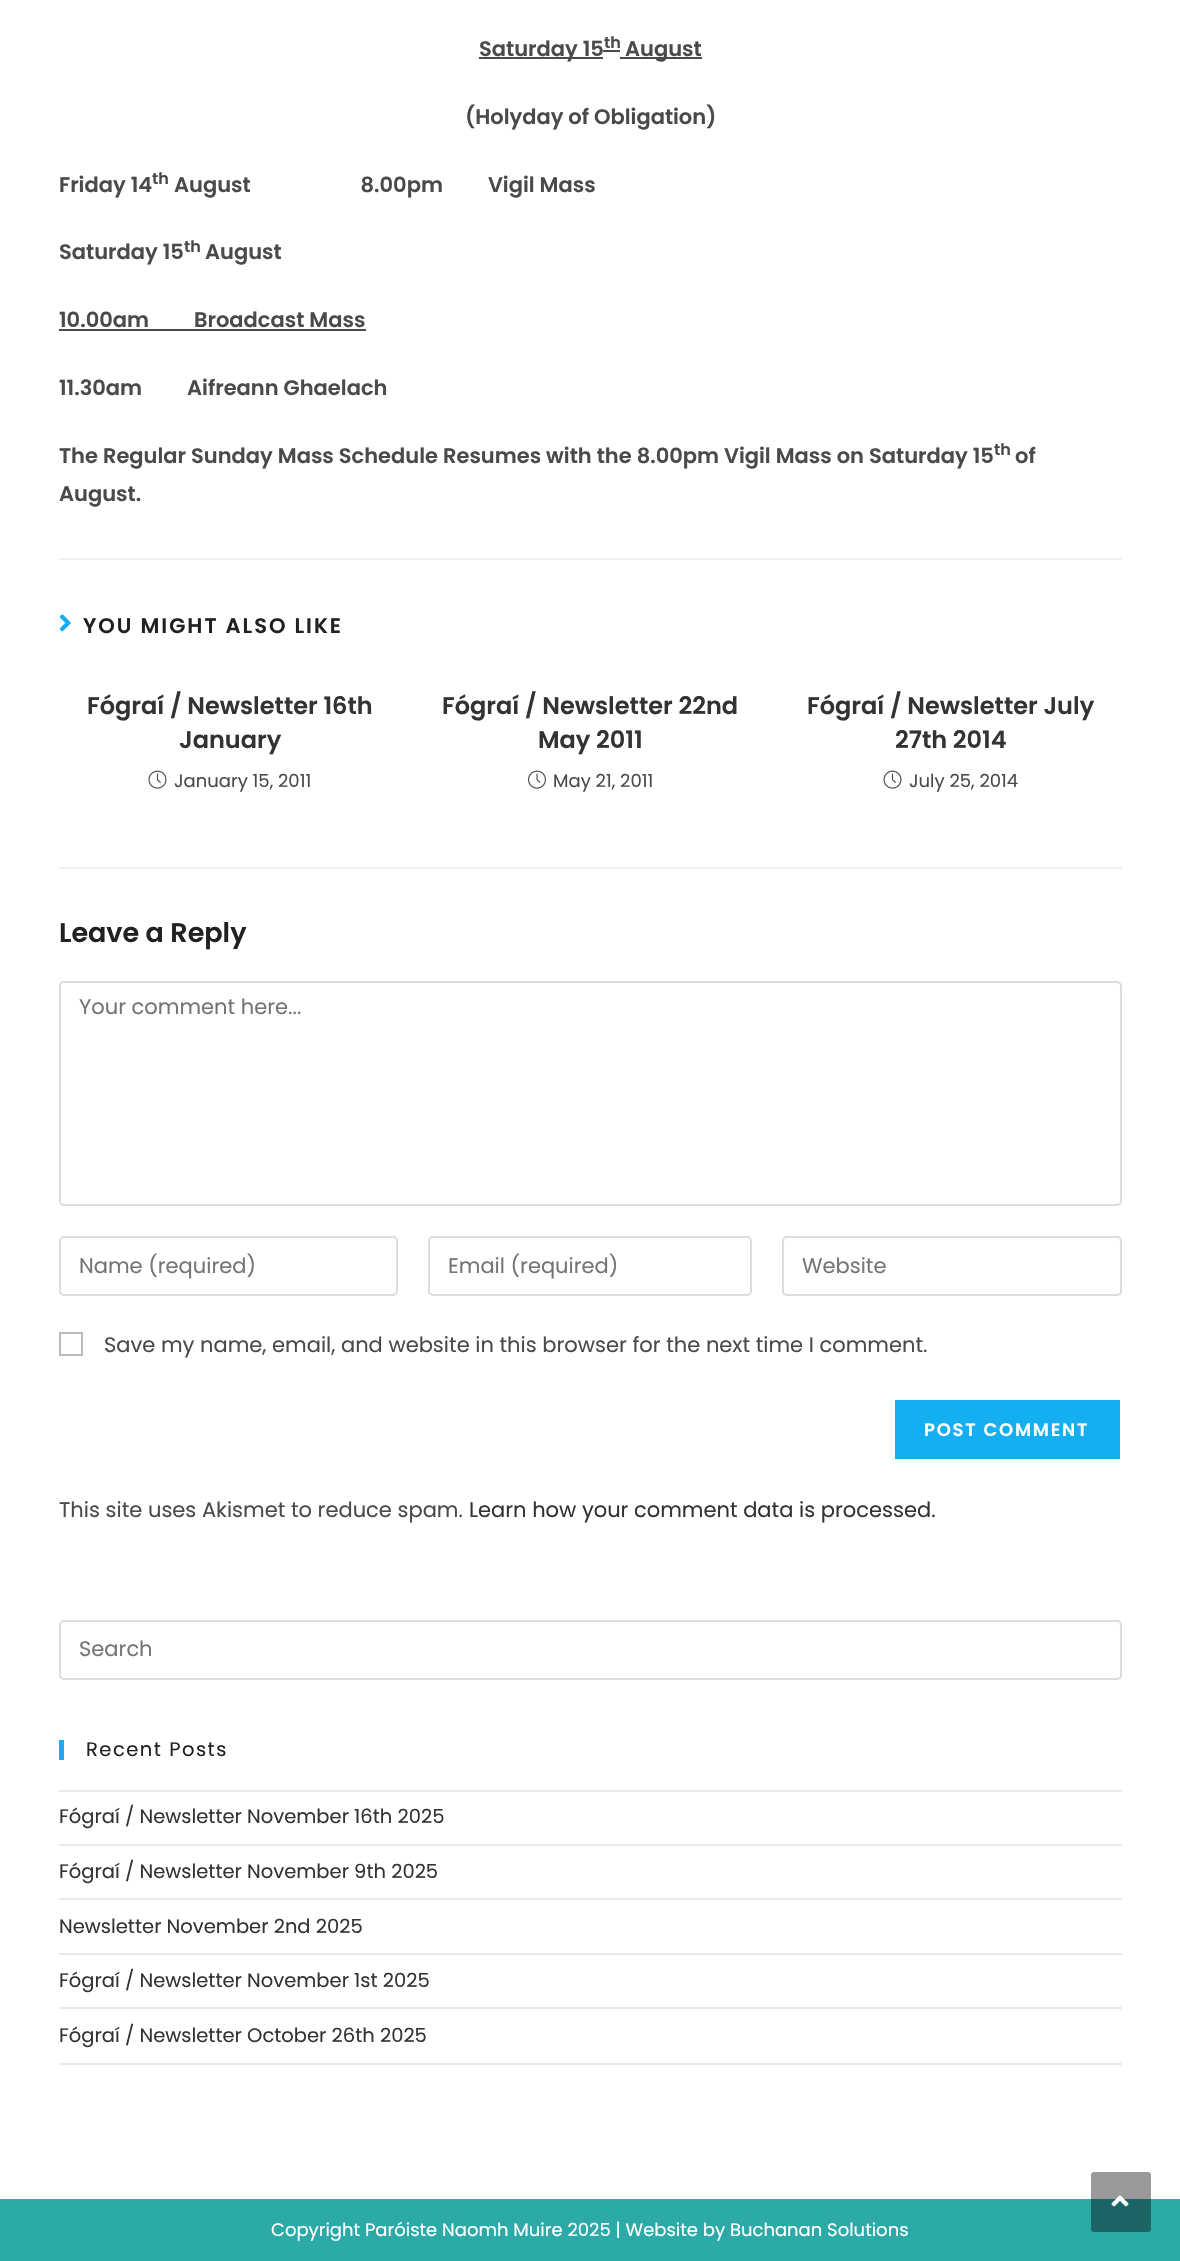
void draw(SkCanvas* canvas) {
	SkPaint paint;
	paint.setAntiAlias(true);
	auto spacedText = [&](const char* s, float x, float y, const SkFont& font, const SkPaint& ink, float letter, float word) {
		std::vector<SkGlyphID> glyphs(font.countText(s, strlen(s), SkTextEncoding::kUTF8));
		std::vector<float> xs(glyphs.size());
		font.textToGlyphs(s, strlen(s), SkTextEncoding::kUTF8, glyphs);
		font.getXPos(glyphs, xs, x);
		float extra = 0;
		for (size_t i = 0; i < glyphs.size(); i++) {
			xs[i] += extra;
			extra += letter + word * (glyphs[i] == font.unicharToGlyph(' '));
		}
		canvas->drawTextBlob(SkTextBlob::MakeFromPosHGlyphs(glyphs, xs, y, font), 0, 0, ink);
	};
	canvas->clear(0xffffffff);
	paint.setColor(0xff4a4a4a);
	canvas->drawRect(SkRect::MakeXYWH(479, 57, 124, 2), paint);
	SkFont f1(fontMgr->matchFamilyStyle("Poppins", SkFontStyle(600, SkFontStyle::kNormal_Width, SkFontStyle::kUpright_Slant)), 21);
	f1.setSubpixel(true);
	canvas->drawString("Saturday 15", 479, 56, f1, paint);
	canvas->drawRect(SkRect::MakeXYWH(603, 50, 17, 2), paint);
	SkFont f2(fontMgr->matchFamilyStyle("Poppins", SkFontStyle(600, SkFontStyle::kNormal_Width, SkFontStyle::kUpright_Slant)), 16);
	f2.setSubpixel(true);
	canvas->drawString("th", 604, 48, f2, paint);
	canvas->drawRect(SkRect::MakeXYWH(620, 57, 82, 2), paint);
	canvas->drawString("August", 625, 56, f1, paint);
	canvas->drawString("(Holyday of Obligation)", 465, 124, f1, paint);
	canvas->drawString("Friday 14", 59, 192, f1, paint);
	canvas->drawString("th", 152, 184, f2, paint);
	canvas->drawString("August                      8.00pm         Vigil Mass", 174, 192, f1, paint);
	canvas->drawString("Saturday 15", 59, 259, f1, paint);
	canvas->drawString("th", 184, 252, f2, paint);
	canvas->drawString("August", 205, 259, f1, paint);
	canvas->drawString("10.00am         Broadcast Mass", 59, 327, f1, paint);
	canvas->drawRect(SkRect::MakeXYWH(59, 329, 307, 2), paint);
	canvas->drawString("11.30am         Aifreann Ghaelach", 59, 395, f1, paint);
	canvas->drawString("The Regular Sunday Mass Schedule Resumes with the 8.00pm Vigil Mass on Saturday 15", 59, 463, f1, paint);
	canvas->drawString("th", 994, 455, f2, paint);
	canvas->drawString("of", 1015, 463, f1, paint);
	canvas->drawString("August.", 59, 501, f1, paint);
	paint.setColor(0xfff1f1f1);
	canvas->drawRect(SkRect::MakeXYWH(59, 558, 1063, 2), paint);
	canvas->drawImageRect(SkImages::DeferredFromEncodedData(SkData::MakeFromFileName("img1.png")), SkRect::MakeXYWH(59, 614, 12, 18), SkSamplingOptions());
	paint.setColor(0xff212121);
	spacedText("YOU MIGHT ALSO LIKE", 83, 633, f1, paint, 2, 0);
	SkFont f3(fontMgr->matchFamilyStyle("Poppins", SkFontStyle(600, SkFontStyle::kNormal_Width, SkFontStyle::kUpright_Slant)), 24);
	f3.setSubpixel(true);
	paint.setColor(0xff333333);
	canvas->drawString("Fógraí / Newsletter 16th", 87, 714, f3, paint);
	canvas->drawString("January", 179, 748, f3, paint);
	canvas->drawImageRect(SkImages::DeferredFromEncodedData(SkData::MakeFromFileName("img2.png")), SkRect::MakeXYWH(148, 770, 19, 19), SkSamplingOptions());
	SkFont f4(fontMgr->matchFamilyStyle("Poppins", SkFontStyle::Normal()), 18);
	f4.setSubpixel(true);
	paint.setColor(0xff4a4a4a);
	canvas->drawString("January 15, 2011", 174, 787, f4, paint);
	paint.setColor(0xff333333);
	canvas->drawString("Fógraí / Newsletter 22nd", 442, 714, f3, paint);
	canvas->drawString("May 2011", 538, 748, f3, paint);
	canvas->drawImageRect(SkImages::DeferredFromEncodedData(SkData::MakeFromFileName("img3.png")), SkRect::MakeXYWH(528, 770, 18, 19), SkSamplingOptions());
	paint.setColor(0xff4a4a4a);
	canvas->drawString("May 21, 2011", 553, 787, f4, paint);
	paint.setColor(0xff333333);
	canvas->drawString("Fógraí / Newsletter July", 807, 714, f3, paint);
	canvas->drawString("27th 2014", 895, 748, f3, paint);
	canvas->drawImageRect(SkImages::DeferredFromEncodedData(SkData::MakeFromFileName("img2.png")), SkRect::MakeXYWH(883, 770, 19, 19), SkSamplingOptions());
	paint.setColor(0xff4a4a4a);
	canvas->drawString("July 25, 2014", 909, 787, f4, paint);
	paint.setColor(0xfff1f1f1);
	canvas->drawRect(SkRect::MakeXYWH(59, 867, 1063, 2), paint);
	SkFont f5(fontMgr->matchFamilyStyle("Poppins", SkFontStyle(600, SkFontStyle::kNormal_Width, SkFontStyle::kUpright_Slant)), 27);
	f5.setSubpixel(true);
	paint.setColor(0xff212121);
	canvas->drawString("Leave a Reply", 59, 942, f5, paint);
	paint.setStroke(true);
	paint.setStrokeWidth(2);
	paint.setColor(0xffdddddd);
	canvas->drawRoundRect(SkRect::MakeXYWH(60, 982, 1061, 223), 4, 4, paint);
	SkFont f6(fontMgr->matchFamilyStyle("Poppins", SkFontStyle::Normal()), 21);
	f6.setSubpixel(true);
	paint.setStroke(false);
	paint.setColor(0xff757575);
	canvas->drawString("Your comment here...", 79, 1014, f6, paint);
	paint.setStroke(true);
	paint.setColor(0xffdddddd);
	canvas->drawRoundRect(SkRect::MakeXYWH(60, 1237, 337, 58), 4, 4, paint);
	paint.setStroke(false);
	paint.setColor(0xff757575);
	canvas->drawString("Name (required)", 79, 1273, f6, paint);
	paint.setStroke(true);
	paint.setColor(0xffdddddd);
	canvas->drawRoundRect(SkRect::MakeXYWH(429, 1237, 322, 58), 4, 4, paint);
	paint.setStroke(false);
	paint.setColor(0xff757575);
	canvas->drawString("Email (required)", 448, 1273, f6, paint);
	paint.setStroke(true);
	paint.setColor(0xffdddddd);
	canvas->drawRoundRect(SkRect::MakeXYWH(783, 1237, 338, 58), 4, 4, paint);
	paint.setStroke(false);
	paint.setColor(0xff757575);
	canvas->drawString("Website", 802, 1273, f6, paint);
	paint.setStroke(true);
	paint.setColor(0xffbbbbbb);
	canvas->drawRect(SkRect::MakeXYWH(60, 1333, 22, 22), paint);
	paint.setStroke(false);
	paint.setColor(0xff4a4a4a);
	canvas->drawString("Save my name, email, and website in this browser for the next time I comment.", 104, 1352, f6, paint);
	paint.setColor(0xff13aff0);
	canvas->drawRect(SkRect::MakeXYWH(895, 1400, 225, 59), paint);
	SkFont f7(fontMgr->matchFamilyStyle("Poppins", SkFontStyle(600, SkFontStyle::kNormal_Width, SkFontStyle::kUpright_Slant)), 18);
	f7.setSubpixel(true);
	paint.setColor(0xffffffff);
	spacedText("POST COMMENT", 924, 1436, f7, paint, 1.75, 0);
	paint.setColor(0xff4a4a4a);
	canvas->drawString("This site uses Akismet to reduce spam.", 59, 1517, f6, paint);
	paint.setColor(0xff333333);
	canvas->drawString("Learn how your comment data is processed.", 469, 1517, f6, paint);
	paint.setStroke(true);
	paint.setColor(0xffdddddd);
	canvas->drawRoundRect(SkRect::MakeXYWH(60, 1621, 1061, 58), 4, 4, paint);
	paint.setStroke(false);
	paint.setColor(0xff757575);
	canvas->drawString("Search", 79, 1656, f6, paint);
	paint.setColor(0xff13aff0);
	canvas->drawRect(SkRect::MakeXYWH(59, 1740, 5, 20), paint);
	SkFont f8(fontMgr->matchFamilyStyle("Poppins", SkFontStyle::Normal()), 19.5);
	f8.setSubpixel(true);
	paint.setColor(0xff212121);
	spacedText("Recent Posts", 86, 1756, f8, paint, 1.5, 0);
	paint.setColor(0xffe9e9e9);
	canvas->drawRect(SkRect::MakeXYWH(59, 1790, 1063, 2), paint);
	canvas->drawRect(SkRect::MakeXYWH(59, 1844, 1063, 2), paint);
	paint.setColor(0xff333333);
	canvas->drawString("Fógraí / Newsletter November 16th 2025", 59, 1823, f8, paint);
	paint.setColor(0xffe9e9e9);
	canvas->drawRect(SkRect::MakeXYWH(59, 1898, 1063, 2), paint);
	paint.setColor(0xff333333);
	canvas->drawString("Fógraí / Newsletter November 9th 2025", 59, 1878, f8, paint);
	paint.setColor(0xffe9e9e9);
	canvas->drawRect(SkRect::MakeXYWH(59, 1953, 1063, 2), paint);
	paint.setColor(0xff333333);
	canvas->drawString("Newsletter November 2nd 2025", 59, 1933, f8, paint);
	paint.setColor(0xffe9e9e9);
	canvas->drawRect(SkRect::MakeXYWH(59, 2007, 1063, 2), paint);
	paint.setColor(0xff333333);
	canvas->drawString("Fógraí / Newsletter November 1st 2025", 59, 1987, f8, paint);
	paint.setColor(0xffe9e9e9);
	canvas->drawRect(SkRect::MakeXYWH(59, 2063, 1063, 2), paint);
	paint.setColor(0xff333333);
	canvas->drawString("Fógraí / Newsletter October 26th 2025", 59, 2042, f8, paint);
	paint.setColor(0xff2caaa8);
	canvas->drawRect(SkRect::MakeXYWH(0, 2199, 1180, 62), paint);
	paint.setColor(0xffffffff);
	canvas->drawString("Copyright Paróiste Naomh Muire 2025 | Website by Buchanan Solutions", 271, 2236, f4, paint);
	paint.setColor(0x66000000);
	canvas->drawRoundRect(SkRect::MakeXYWH(1091, 2172, 60, 60), 3, 3, paint);
	canvas->drawImageRect(SkImages::DeferredFromEncodedData(SkData::MakeFromFileName("img4.png")), SkRect::MakeXYWH(1111, 2195, 18, 12), SkSamplingOptions());
}
